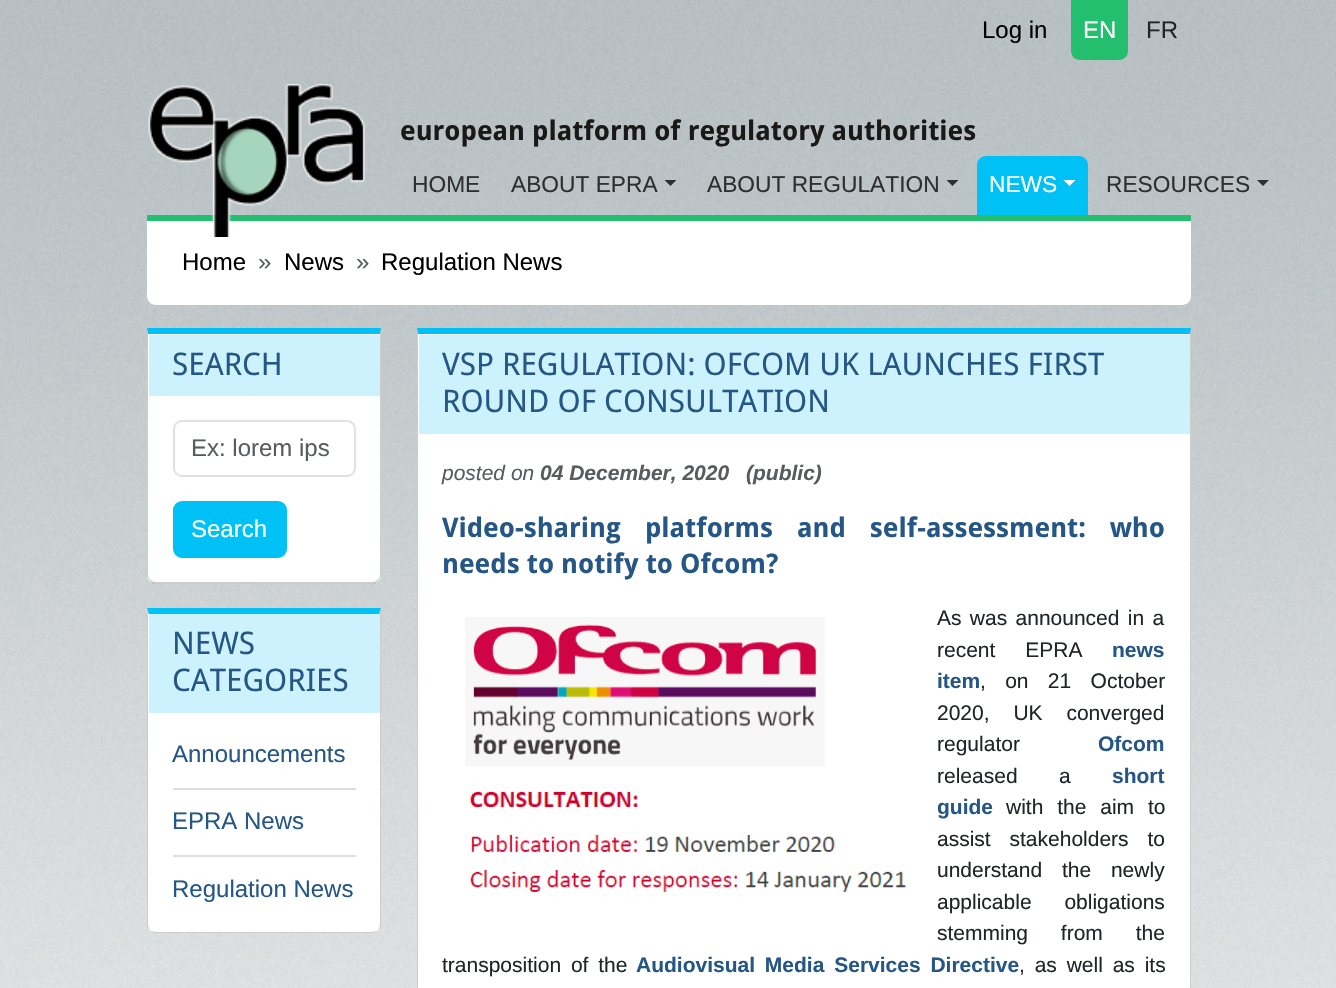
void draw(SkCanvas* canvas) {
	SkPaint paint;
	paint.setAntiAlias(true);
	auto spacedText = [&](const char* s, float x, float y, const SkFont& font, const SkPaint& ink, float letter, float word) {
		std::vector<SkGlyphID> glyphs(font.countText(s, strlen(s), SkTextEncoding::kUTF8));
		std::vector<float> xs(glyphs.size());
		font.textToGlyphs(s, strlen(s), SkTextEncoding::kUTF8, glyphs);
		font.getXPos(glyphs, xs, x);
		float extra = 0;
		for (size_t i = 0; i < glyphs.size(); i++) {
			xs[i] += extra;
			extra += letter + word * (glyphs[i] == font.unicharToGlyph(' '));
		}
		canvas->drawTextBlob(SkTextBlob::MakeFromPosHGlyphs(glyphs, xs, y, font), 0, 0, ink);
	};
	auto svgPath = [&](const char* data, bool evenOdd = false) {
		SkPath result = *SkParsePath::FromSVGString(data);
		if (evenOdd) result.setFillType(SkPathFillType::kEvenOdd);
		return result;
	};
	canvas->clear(0xffffffff);
	canvas->drawImageRect(SkImages::DeferredFromEncodedData(SkData::MakeFromFileName("img1.png")), SkRect::MakeXYWH(0, 0, 1336, 988), SkSamplingOptions());
	SkFont f1(fontMgr->matchFamilyStyle("Liberation Sans", SkFontStyle::Normal()), 24);
	f1.setSubpixel(true);
	paint.setColor(0xff000000);
	canvas->drawString("Log in", 982, 38, f1, paint);
	paint.setColor(0xff23be6e);
	canvas->drawPath(svgPath("M1071 0H1128V51C1128 56 1124 60 1119 60H1080C1075 60 1071 56 1071 51Z"), paint);
	paint.setColor(0xffffffff);
	canvas->drawString("EN", 1083, 38, f1, paint);
	paint.setColor(0xff212529);
	canvas->drawString("FR", 1146, 38, f1, paint);
	paint.setColor(0xffffffff);
	canvas->drawPath(svgPath("M147 215H1191V296C1191 301 1187 305 1182 305H156C151 305 147 301 147 296Z"), paint);
	paint.setColor(0xff23be6e);
	canvas->drawRect(SkRect::MakeXYWH(147, 215, 1044, 6), paint);
	canvas->drawImageRect(SkImages::DeferredFromEncodedData(SkData::MakeFromFileName("img2.png")), SkRect::MakeXYWH(148, 83, 217, 154), SkSamplingOptions());
	SkFont f2(fontMgr->matchFamilyStyle("Droid Sans", SkFontStyle::Bold()), 27);
	f2.setSubpixel(true);
	paint.setColor(0xff1b1818);
	canvas->drawString("european platform of regulatory authorities", 400, 140, f2, paint);
	SkFont f3(fontMgr->matchFamilyStyle("Liberation Sans", SkFontStyle::Normal()), 22.75);
	f3.setSubpixel(true);
	paint.setColor(0xff2f2f2f);
	canvas->drawString("HOME", 412, 192, f3, paint);
	canvas->drawString("ABOUT EPRA", 511, 192, f3, paint);
	canvas->drawPath(svgPath("M664.5 180H676.5L670.5 186Z"), paint);
	canvas->drawString("ABOUT REGULATION", 707, 192, f3, paint);
	canvas->drawPath(svgPath("M946.5 180H958.5L952.5 186Z"), paint);
	paint.setColor(0xff00c1f6);
	canvas->drawPath(svgPath("M986 156H1079C1084 156 1088 160 1088 165V215H977V165C977 160 981 156 986 156Z"), paint);
	paint.setColor(0xffffffff);
	canvas->drawString("NEWS", 989, 192, f3, paint);
	canvas->drawPath(svgPath("M1063.5 180H1075.5L1069.5 186Z"), paint);
	paint.setColor(0xff2f2f2f);
	canvas->drawString("RESOURCES", 1106, 192, f3, paint);
	canvas->drawPath(svgPath("M1257 180H1269L1263 186Z"), paint);
	paint.setColor(0xff000000);
	canvas->drawString("Home", 182, 270, f1, paint);
	paint.setColor(0xff595c5f);
	canvas->drawString("»", 258, 270, f1, paint);
	paint.setColor(0xff000000);
	canvas->drawString("News", 284, 270, f1, paint);
	paint.setColor(0xff595c5f);
	canvas->drawString("»", 356, 270, f1, paint);
	paint.setColor(0xff000000);
	canvas->drawString("Regulation News", 381, 270, f1, paint);
	paint.setColor(0xffffffff);
	canvas->drawPath(svgPath("M147 329H381V575C381 580 377 584 372 584H156C151 584 147 580 147 575Z"), paint);
	paint.setColor(0xff00c1f6);
	canvas->drawPath(svgPath("M147 328L148 334H380L381 328Z"), paint);
	paint.setColor(0x33000000);
	canvas->drawPath(svgPath("M381 328L380 334V574C380 577 379 579 377 580L378 581C380 579 381 576 381 574Z"), paint);
	canvas->drawPath(svgPath("M153 584L150 581L151 580C152 581 154 582 156 582H372C374 582 376 581 377 580L378 581L375 584Z"), paint);
	canvas->drawPath(svgPath("M148 334L147 328V574C147 576 148 579 150 581L151 580C149 579 148 577 148 574Z"), paint);
	paint.setColor(0xffccf3fd);
	canvas->drawRect(SkRect::MakeXYWH(149, 335, 231, 61), paint);
	SkFont f4(fontMgr->matchFamilyStyle("Droid Sans", SkFontStyle::Normal()), 31.2);
	f4.setSubpixel(true);
	paint.setColor(0xff255685);
	canvas->drawString("SEARCH", 172, 375, f4, paint);
	paint.setStroke(true);
	paint.setStrokeWidth(2);
	paint.setColor(0xffdee2e6);
	canvas->drawRoundRect(SkRect::MakeXYWH(174, 421, 181, 55), 8, 8, paint);
	paint.setStroke(false);
	paint.setColor(0xff595c5f);
	canvas->drawString("Ex: lorem ips", 191, 456, f1, paint);
	paint.setColor(0xff00c1f6);
	canvas->drawRoundRect(SkRect::MakeXYWH(174, 502, 112, 55), 8, 8, paint);
	paint.setStroke(true);
	canvas->drawRoundRect(SkRect::MakeXYWH(174, 502, 112, 55), 8, 8, paint);
	paint.setStroke(false);
	paint.setColor(0xffffffff);
	canvas->drawString("Search", 191, 537, f1, paint);
	canvas->drawPath(svgPath("M147 608H381V924C381 929 377 933 372 933H156C151 933 147 929 147 924Z"), paint);
	paint.setColor(0xff00c1f6);
	canvas->drawPath(svgPath("M381 608H147L149 614H379Z"), paint);
	paint.setColor(0x33000000);
	canvas->drawPath(svgPath("M381 924V608L379 614H380V924C380 926 379 928 378 930C380 929 381 926 381 924Z"), paint);
	canvas->drawPath(svgPath("M156 933H372C374 933 377 932 378 930C376 931 374 932 372 932H156C154 932 152 931 150 930C151 932 154 933 156 933Z"), paint);
	canvas->drawPath(svgPath("M148 614V924C148 926 149 928 150 930C148 929 147 926 147 924V608L149 614Z"), paint);
	paint.setColor(0xffccf3fd);
	canvas->drawRect(SkRect::MakeXYWH(149, 614, 231, 99), paint);
	paint.setColor(0xff255685);
	canvas->drawString("NEWS", 172, 654, f4, paint);
	canvas->drawString("CATEGORIES", 172, 691, f4, paint);
	canvas->drawString("Announcements", 172, 762, f1, paint);
	paint.setColor(0xffdedede);
	canvas->drawRect(SkRect::MakeXYWH(173, 788, 183, 2), paint);
	paint.setColor(0xff255685);
	canvas->drawString("EPRA News", 172, 829, f1, paint);
	paint.setColor(0xffdedede);
	canvas->drawRect(SkRect::MakeXYWH(173, 855, 183, 2), paint);
	paint.setColor(0xff255685);
	canvas->drawString("Regulation News", 172, 897, f1, paint);
	paint.setColor(0xffffffff);
	canvas->drawRect(SkRect::MakeXYWH(417, 329, 774, 659), paint);
	paint.setColor(0xff00c1f6);
	canvas->drawPath(svgPath("M417 328L418 334H1190L1191 328Z"), paint);
	paint.setColor(0x33000000);
	canvas->drawPath(svgPath("M1191 328L1190 334V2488C1190 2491 1189 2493 1187 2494L1188 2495C1190 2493 1191 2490 1191 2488Z"), paint);
	canvas->drawPath(svgPath("M418 334L417 328V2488C417 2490 418 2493 420 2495L421 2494C419 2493 418 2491 418 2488Z"), paint);
	paint.setColor(0xffccf3fd);
	canvas->drawRect(SkRect::MakeXYWH(419, 335, 771, 99), paint);
	paint.setColor(0xff255685);
	canvas->drawString("VSP REGULATION: OFCOM UK LAUNCHES FIRST", 442, 375, f4, paint);
	canvas->drawString("ROUND OF CONSULTATION", 442, 412, f4, paint);
	SkFont f5(fontMgr->matchFamilyStyle("Liberation Sans", SkFontStyle::Italic()), 21);
	f5.setSubpixel(true);
	paint.setColor(0xff595c5f);
	canvas->drawString("posted on", 442, 480, f5, paint);
	SkFont f6(fontMgr->matchFamilyStyle("Liberation Sans", SkFontStyle::BoldItalic()), 21);
	f6.setSubpixel(true);
	canvas->drawString("04 December, 2020", 540, 480, f6, paint);
	canvas->drawString("(public)", 746, 480, f6, paint);
	paint.setColor(0xff255685);
	spacedText("Video-sharing platforms and self-assessment: who", 442, 537, f2, paint, 0, 17);
	canvas->drawString("needs to notify to Ofcom?", 442, 573, f2, paint);
	SkFont f7(fontMgr->matchFamilyStyle("Liberation Sans", SkFontStyle::Normal()), 21);
	f7.setSubpixel(true);
	paint.setColor(0xff212529);
	spacedText("As was announced in a", 937, 625, f7, paint, 0, 2.5);
	spacedText("recent EPRA", 937, 657, f7, paint, 0, 24);
	SkFont f8(fontMgr->matchFamilyStyle("Liberation Sans", SkFontStyle::Bold()), 21);
	f8.setSubpixel(true);
	paint.setColor(0xff255685);
	canvas->drawString("news", 1112, 657, f8, paint);
	canvas->drawString("item", 937, 688, f8, paint);
	paint.setColor(0xff212529);
	spacedText(", on 21 October", 980, 688, f7, paint, 0, 13.5);
	spacedText("2020, UK converged", 937, 720, f7, paint, 0, 18);
	canvas->drawString("regulator", 937, 751, f7, paint);
	paint.setColor(0xff255685);
	canvas->drawString("Ofcom", 1098, 751, f8, paint);
	paint.setColor(0xff212529);
	canvas->drawString("released", 937, 783, f7, paint);
	canvas->drawString("a", 1059, 783, f7, paint);
	paint.setColor(0xff255685);
	canvas->drawString("short", 1112, 783, f8, paint);
	canvas->drawString("guide", 937, 814, f8, paint);
	paint.setColor(0xff212529);
	spacedText("with the aim to", 1006, 814, f7, paint, 0, 8);
	spacedText("assist stakeholders to", 937, 846, f7, paint, 0, 13);
	spacedText("understand the newly", 937, 877, f7, paint, 0, 14);
	spacedText("applicable obligations", 937, 909, f7, paint, 0, 27);
	spacedText("stemming from the", 937, 940, f7, paint, 0, 27);
	spacedText("transposition of the", 442, 972, f7, paint, 0, 4);
	paint.setColor(0xff255685);
	spacedText("Audiovisual Media Services Directive", 636, 972, f8, paint, 0, 4);
	paint.setColor(0xff212529);
	spacedText(", as well as its", 1019, 972, f7, paint, 0, 4);
	canvas->drawImageRect(SkImages::DeferredFromEncodedData(SkData::MakeFromFileName("img3.png")), SkRect::MakeXYWH(465, 617, 442, 276), SkSamplingOptions());
}
